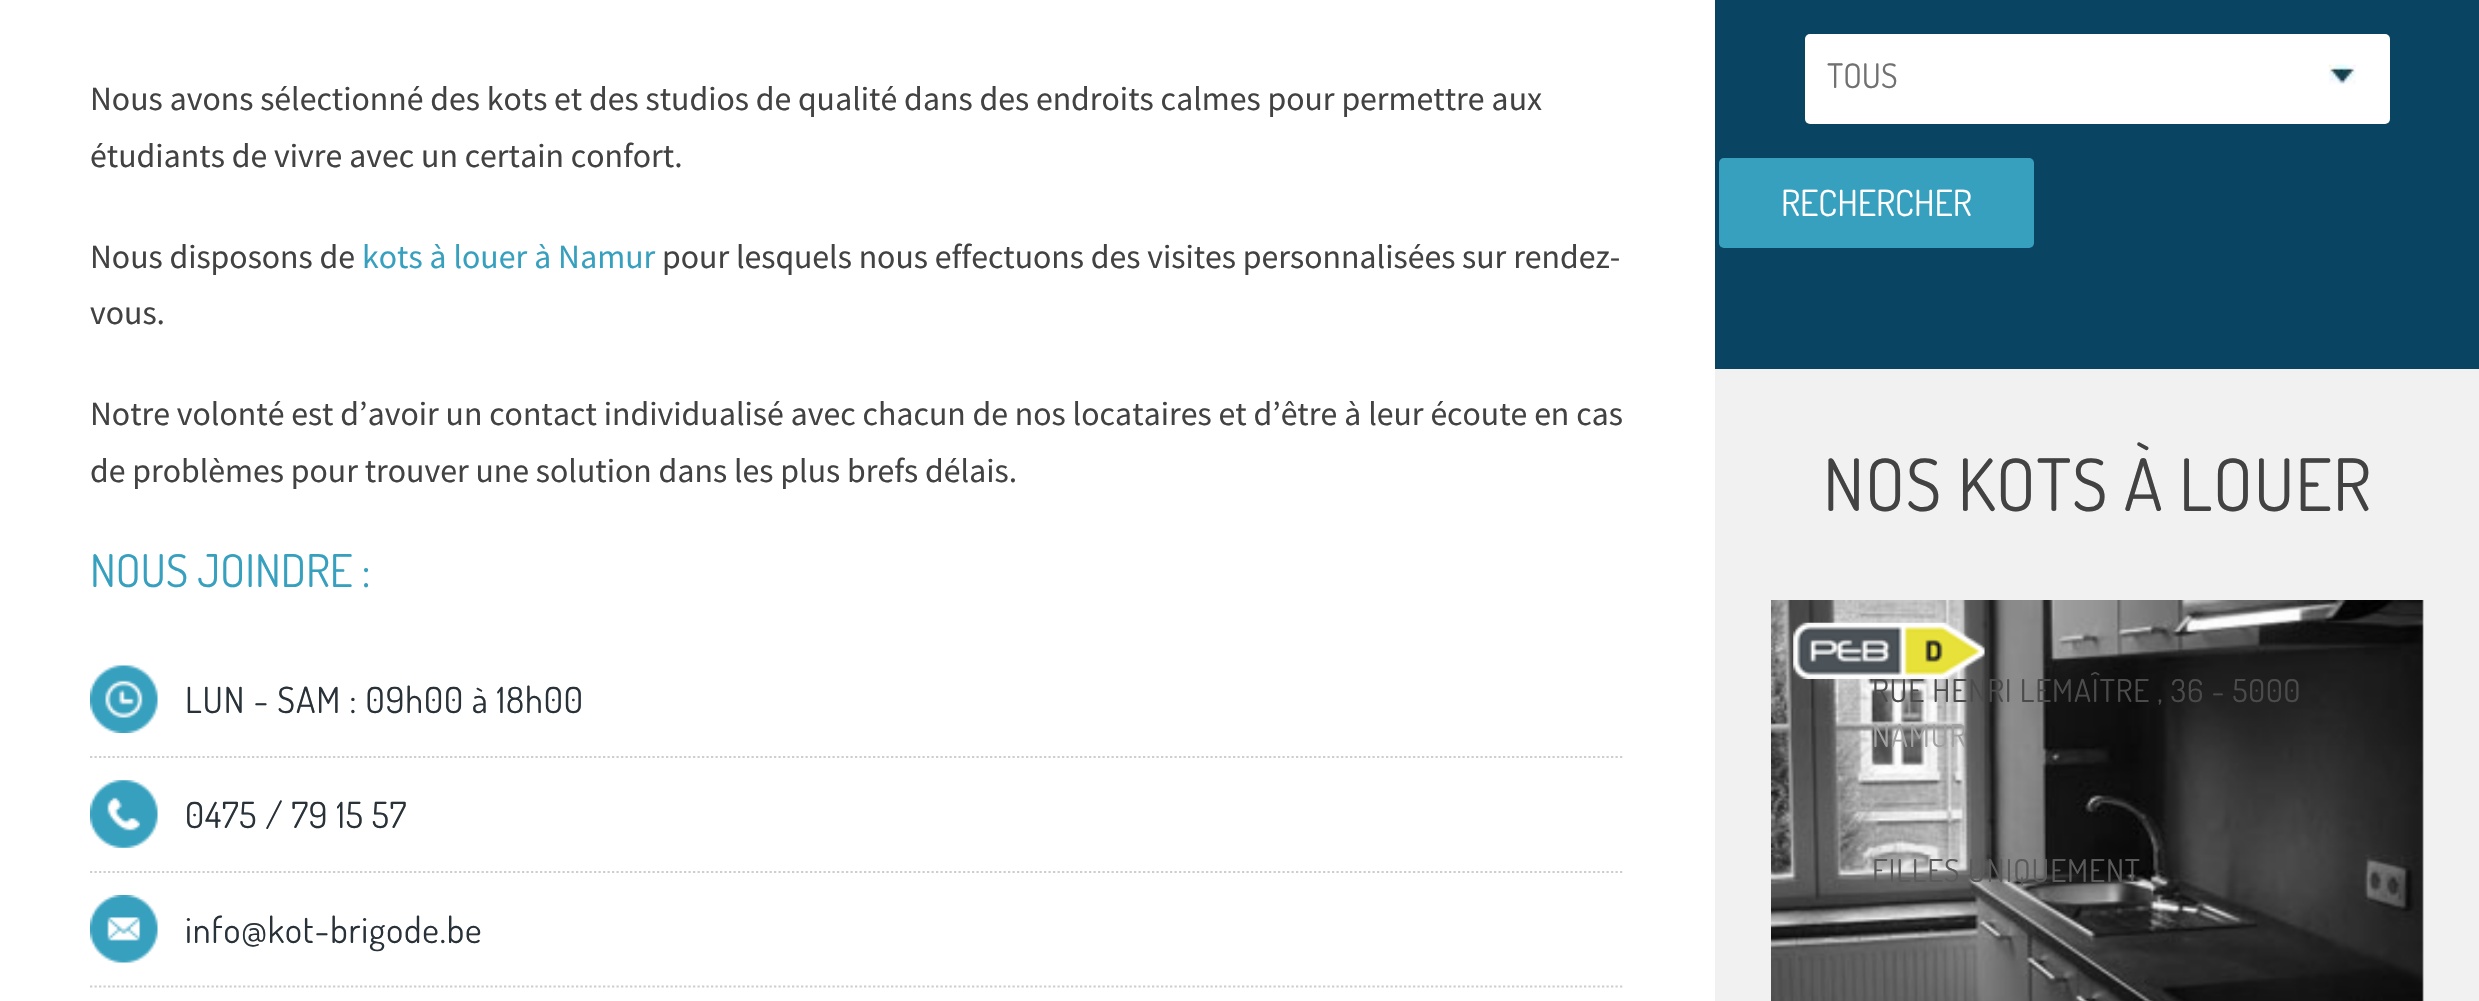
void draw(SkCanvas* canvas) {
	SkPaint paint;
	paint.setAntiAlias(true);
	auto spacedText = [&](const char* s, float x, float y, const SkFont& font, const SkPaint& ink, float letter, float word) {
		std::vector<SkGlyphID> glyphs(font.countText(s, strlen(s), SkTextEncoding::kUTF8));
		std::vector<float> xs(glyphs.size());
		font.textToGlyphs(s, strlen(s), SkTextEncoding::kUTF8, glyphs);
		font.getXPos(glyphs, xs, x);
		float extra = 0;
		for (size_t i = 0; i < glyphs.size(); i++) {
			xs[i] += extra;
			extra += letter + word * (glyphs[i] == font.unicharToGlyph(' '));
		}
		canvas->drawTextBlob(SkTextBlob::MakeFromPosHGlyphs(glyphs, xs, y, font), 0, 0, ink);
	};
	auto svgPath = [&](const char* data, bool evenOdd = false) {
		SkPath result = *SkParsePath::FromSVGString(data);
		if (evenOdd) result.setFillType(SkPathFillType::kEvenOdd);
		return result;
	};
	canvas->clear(0xffffffff);
	SkFont f1(fontMgr->matchFamilyStyle("Source Sans Pro", SkFontStyle::Normal()), 33.75);
	f1.setSubpixel(true);
	paint.setColor(0xff424242);
	canvas->drawString("Nous avons sélectionné des kots et des studios de qualité dans des endroits calmes pour permettre aux", 90, 110, f1, paint);
	canvas->drawString("étudiants de vivre avec un certain confort.", 90, 167, f1, paint);
	canvas->drawString("Nous disposons de", 90, 268, f1, paint);
	paint.setColor(0xff37a0be);
	canvas->drawString("kots à louer à Namur", 362, 268, f1, paint);
	paint.setColor(0xff424242);
	canvas->drawString("pour lesquels nous effectuons des visites personnalisées sur rendez-", 662, 268, f1, paint);
	canvas->drawString("vous.", 90, 324, f1, paint);
	canvas->drawString("Notre volonté est d’avoir un contact individualisé avec chacun de nos locataires et d’être à leur écoute en cas", 90, 425, f1, paint);
	canvas->drawString("de problèmes pour trouver une solution dans les plus brefs délais.", 90, 482, f1, paint);
	SkFont f2(fontMgr->matchFamilyStyle("Dosis", SkFontStyle::Normal()), 45);
	f2.setSubpixel(true);
	paint.setColor(0xff37a0be);
	canvas->drawString("NOUS JOINDRE :", 90, 587, f2, paint);
	paint.setStroke(true);
	paint.setStrokeWidth(2.2);
	paint.setColor(0xffcecece);
	paint.setPathEffect(SkDashPathEffect::Make({{2.25f, 2.25f}}, 0));
	canvas->drawPath(svgPath("M90 757H1624.5"), paint);
	paint.setPathEffect(nullptr);
	canvas->drawImageRect(SkImages::DeferredFromEncodedData(SkData::MakeFromFileName("img1.png")), SkRect::MakeXYWH(90, 665, 68, 68), SkSamplingOptions());
	SkFont f3(fontMgr->matchFamilyStyle("Dosis", SkFontStyle::Normal()), 36);
	f3.setSubpixel(true);
	paint.setStroke(false);
	paint.setColor(0xff293239);
	spacedText("LUN - SAM : 09h00 à 18h00", 185, 713, f3, paint, 0.9, 0);
	paint.setStroke(true);
	paint.setColor(0xffcecece);
	paint.setPathEffect(SkDashPathEffect::Make({{2.25f, 2.25f}}, 0));
	canvas->drawPath(svgPath("M90 872H1624.5"), paint);
	paint.setPathEffect(nullptr);
	canvas->drawImageRect(SkImages::DeferredFromEncodedData(SkData::MakeFromFileName("img2.png")), SkRect::MakeXYWH(90, 780, 68, 68), SkSamplingOptions());
	paint.setStroke(false);
	paint.setColor(0xff293239);
	spacedText("0475 / 79 15 57", 185, 828, f3, paint, 0.9, 0);
	paint.setStroke(true);
	paint.setColor(0xffcecece);
	paint.setPathEffect(SkDashPathEffect::Make({{2.25f, 2.25f}}, 0));
	canvas->drawPath(svgPath("M90 986.5H1624.5"), paint);
	paint.setPathEffect(nullptr);
	canvas->drawImageRect(SkImages::DeferredFromEncodedData(SkData::MakeFromFileName("img3.png")), SkRect::MakeXYWH(90, 895, 68, 68), SkSamplingOptions());
	paint.setStroke(false);
	paint.setColor(0xff293239);
	spacedText("info@kot-brigode.be", 185, 943, f3, paint, 0.9, 0);
	paint.setColor(0xfff1f1f1);
	canvas->drawRect(SkRect::MakeXYWH(1715, 369, 764, 632), paint);
	paint.setColor(0xff094462);
	canvas->drawRect(SkRect::MakeXYWH(1715, 0, 764, 369), paint);
	paint.setColor(0xffffffff);
	canvas->drawRoundRect(SkRect::MakeXYWH(1805, 34, 585, 90), 5, 5, paint);
	canvas->drawImageRect(SkImages::DeferredFromEncodedData(SkData::MakeFromFileName("img4.png")), SkRect::MakeXYWH(2328, 64, 28, 21), SkSamplingOptions());
	SkFont f4(fontMgr->matchFamilyStyle("Dosis", SkFontStyle::Normal()), 33.75);
	f4.setSubpixel(true);
	paint.setColor(0xff717171);
	canvas->drawString("TOUS", 1827, 88, f4, paint);
	paint.setColor(0xff37a0be);
	canvas->drawRoundRect(SkRect::MakeXYWH(1719, 158, 315, 90), 5, 5, paint);
	paint.setColor(0xffffffff);
	canvas->drawString("RECHERCHER", 1781, 216, f3, paint);
	SkFont f5(fontMgr->matchFamilyStyle("Dosis", SkFontStyle::Normal()), 72);
	f5.setSubpixel(true);
	paint.setColor(0xff424242);
	spacedText("NOS KOTS À LOUER", 1823, 511, f5, paint, 0.9, 0);
	canvas->drawImageRect(SkImages::DeferredFromEncodedData(SkData::MakeFromFileName("img5.png")), SkRect::MakeXYWH(1771, 600, 653, 401), SkSamplingOptions());
	canvas->drawImageRect(SkImages::DeferredFromEncodedData(SkData::MakeFromFileName("img6.png")), SkRect::MakeXYWH(1793, 622, 192, 57), SkSamplingOptions());
	SkFont f6(fontMgr->matchFamilyStyle("Dosis", SkFontStyle::Normal()), 31.5);
	f6.setSubpixel(true);
	paint.setColor(0xff4b4b4b);
	spacedText("RUE HENRI LEMAÎTRE , 36 - 5000", 1872, 702, f6, paint, 0.9, 0);
	paint.setColor(0xffa1a1a1);
	spacedText("NAMUR", 1872, 747, f6, paint, 0.9, 0);
	paint.setColor(0xff5a5a5a);
	spacedText("FILLES UNIQUEMENT", 1872, 882, f6, paint, 0.9, 0);
}
